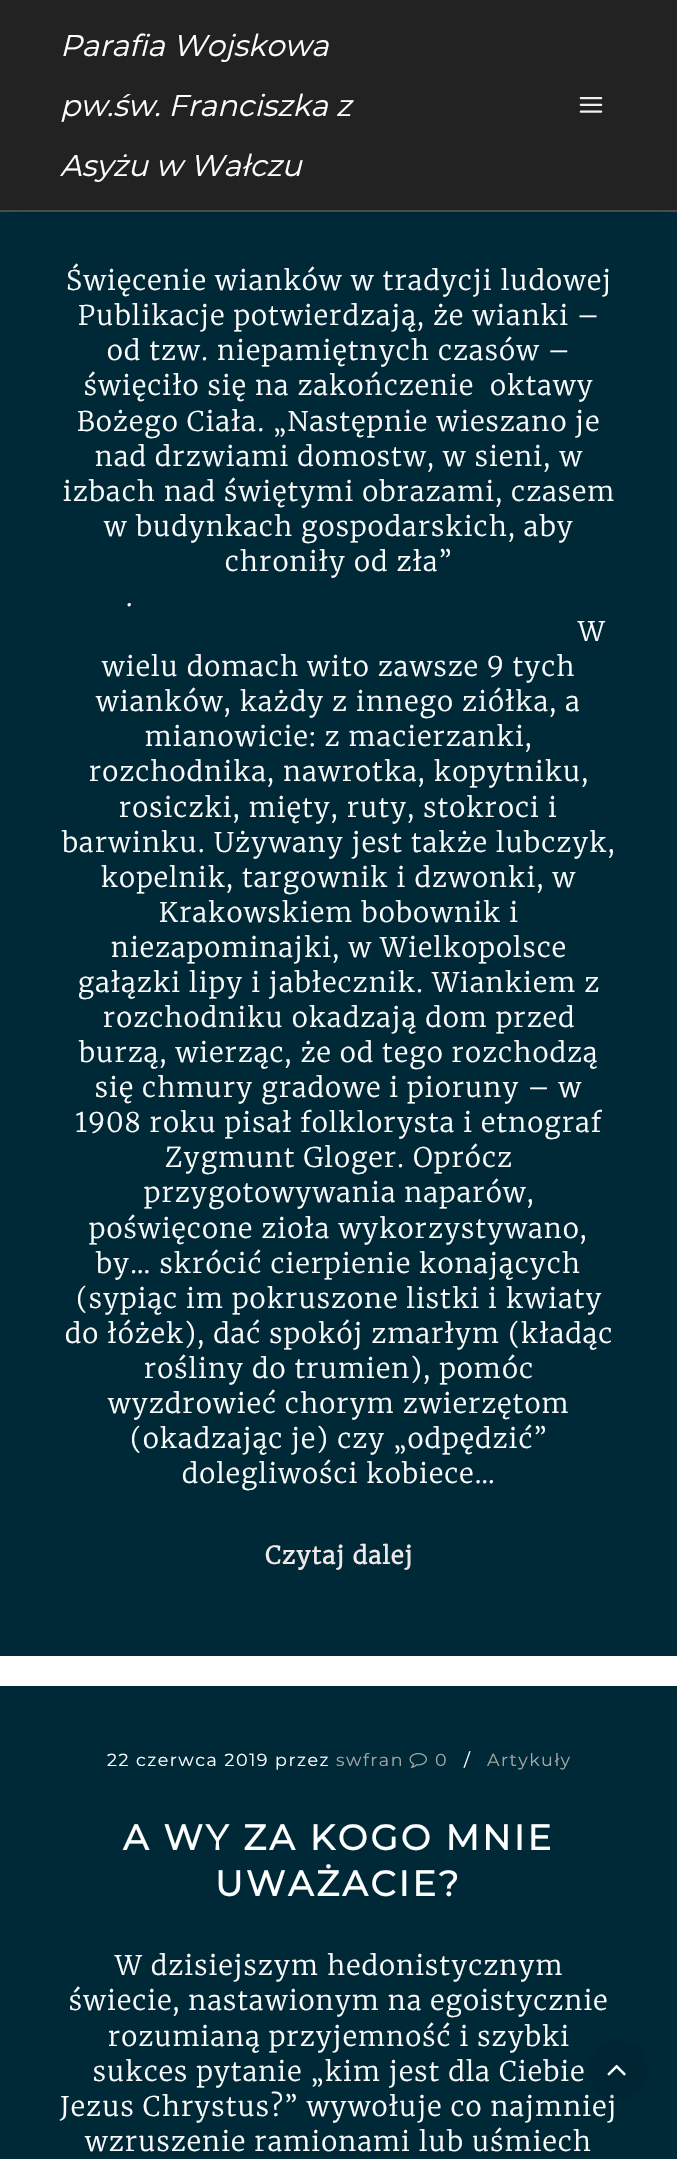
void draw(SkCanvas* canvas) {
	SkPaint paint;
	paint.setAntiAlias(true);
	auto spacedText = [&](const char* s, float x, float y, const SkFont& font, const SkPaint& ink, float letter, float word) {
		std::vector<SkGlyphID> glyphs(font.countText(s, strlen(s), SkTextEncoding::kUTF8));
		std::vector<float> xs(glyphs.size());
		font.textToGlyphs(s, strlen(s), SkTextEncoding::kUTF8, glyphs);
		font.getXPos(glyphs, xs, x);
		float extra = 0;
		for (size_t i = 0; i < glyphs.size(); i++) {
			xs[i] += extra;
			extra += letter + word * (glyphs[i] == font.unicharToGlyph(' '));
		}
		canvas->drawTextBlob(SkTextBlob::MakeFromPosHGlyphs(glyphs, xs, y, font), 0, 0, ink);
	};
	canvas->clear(0xffffffff);
	paint.setColor(0xff002938);
	canvas->drawRect(SkRect::MakeXYWH(0, 212, 677, 1444), paint);
	paint.setColor(0x17000000);
	paint.setMaskFilter(SkMaskFilter::MakeBlur(kNormal_SkBlurStyle, 9));
	canvas->drawRect(SkRect::MakeXYWH(0, 0, 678, 212), paint);
	paint.setMaskFilter(nullptr);
	paint.setColor(0xff222222);
	canvas->drawRect(SkRect::MakeXYWH(0, 0, 677, 210), paint);
	paint.setColor(0xff4b4b4b);
	canvas->drawRect(SkRect::MakeXYWH(0, 210, 677, 2), paint);
	SkFont f1(fontMgr->matchFamilyStyle("Montserrat", SkFontStyle(100, SkFontStyle::kNormal_Width, SkFontStyle::kItalic_Slant)), 30);
	f1.setSubpixel(true);
	paint.setColor(0xffffffff);
	canvas->drawString("Parafia Wojskowa", 60, 56, f1, paint);
	canvas->drawString("pw.św. Franciszka z", 60, 116, f1, paint);
	canvas->drawString("Asyżu w Wałczu", 60, 176, f1, paint);
	canvas->drawImageRect(SkImages::DeferredFromEncodedData(SkData::MakeFromFileName("img1.png")), SkRect::MakeXYWH(579, 97, 24, 16), SkSamplingOptions());
	SkFont f2(fontMgr->matchFamilyStyle("Merriweather", SkFontStyle(300, SkFontStyle::kNormal_Width, SkFontStyle::kUpright_Slant)), 27);
	f2.setSubpixel(true);
	spacedText("Święcenie wianków w tradycji ludowej", 66, 290, f2, paint, 1.5, 0);
	spacedText("Publikacje potwierdzają, że wianki –", 78, 325, f2, paint, 1.5, 0);
	spacedText("od tzw. niepamiętnych czasów –", 107, 360, f2, paint, 1.5, 0);
	spacedText("święciło się na zakończenie  oktawy", 84, 395, f2, paint, 1.5, 0);
	spacedText("Bożego Ciała. „Następnie wieszano je", 77, 431, f2, paint, 1.5, 0);
	spacedText("nad drzwiami domostw, w sieni, w", 95, 466, f2, paint, 1.5, 0);
	spacedText("izbach nad świętymi obrazami, czasem", 63, 501, f2, paint, 1.5, 0);
	spacedText("w budynkach gospodarskich, aby", 104, 536, f2, paint, 1.5, 0);
	spacedText("chroniły od zła”", 225, 571, f2, paint, 1.5, 0);
	spacedText(".", 126, 606, f2, paint, 1.5, 0);
	spacedText("W", 578, 641, f2, paint, 1.5, 0);
	spacedText("wielu domach wito zawsze 9 tych", 102, 676, f2, paint, 1.5, 0);
	spacedText("wianków, każdy z innego ziółka, a", 96, 711, f2, paint, 1.5, 0);
	spacedText("mianowicie: z macierzanki,", 145, 746, f2, paint, 1.5, 0);
	spacedText("rozchodnika, nawrotka, kopytniku,", 89, 781, f2, paint, 1.5, 0);
	spacedText("rosiczki, mięty, ruty, stokroci i", 119, 817, f2, paint, 1.5, 0);
	spacedText("barwinku. Używany jest także lubczyk,", 62, 852, f2, paint, 1.5, 0);
	spacedText("kopelnik, targownik i dzwonki, w", 101, 887, f2, paint, 1.5, 0);
	spacedText("Krakowskiem bobownik i", 159, 922, f2, paint, 1.5, 0);
	spacedText("niezapominajki, w Wielkopolsce", 111, 957, f2, paint, 1.5, 0);
	spacedText("gałązki lipy i jabłecznik. Wiankiem z", 78, 992, f2, paint, 1.5, 0);
	spacedText("rozchodniku okadzają dom przed", 103, 1027, f2, paint, 1.5, 0);
	spacedText("burzą, wierząc, że od tego rozchodzą", 79, 1062, f2, paint, 1.5, 0);
	spacedText("się chmury gradowe i pioruny – w", 95, 1097, f2, paint, 1.5, 0);
	spacedText("1908 roku pisał folklorysta i etnograf", 75, 1132, f2, paint, 1.5, 0);
	spacedText("Zygmunt Gloger. Oprócz", 165, 1167, f2, paint, 1.5, 0);
	spacedText("przygotowywania naparów,", 144, 1202, f2, paint, 1.5, 0);
	spacedText("poświęcone zioła wykorzystywano,", 89, 1238, f2, paint, 1.5, 0);
	spacedText("by… skrócić cierpienie konających", 96, 1273, f2, paint, 1.5, 0);
	spacedText("(sypiąc im pokruszone listki i kwiaty", 76, 1308, f2, paint, 1.5, 0);
	spacedText("do łóżek), dać spokój zmarłym (kładąc", 65, 1343, f2, paint, 1.5, 0);
	spacedText("rośliny do trumien), pomóc", 144, 1378, f2, paint, 1.5, 0);
	spacedText("wyzdrowieć chorym zwierzętom", 108, 1413, f2, paint, 1.5, 0);
	spacedText("(okadzając je) czy „odpędzić”", 130, 1448, f2, paint, 1.5, 0);
	spacedText("dolegliwości kobiece…", 182, 1483, f2, paint, 1.5, 0);
	SkFont f3(fontMgr->matchFamilyStyle("Merriweather", SkFontStyle::Bold()), 24);
	f3.setSubpixel(true);
	paint.setColor(0xfff1e9e9);
	spacedText("Czytaj dalej", 265, 1564, f3, paint, 1.5, 0);
	paint.setColor(0xff002938);
	canvas->drawRect(SkRect::MakeXYWH(0, 1686, 677, 473), paint);
	SkFont f4(fontMgr->matchFamilyStyle("Montserrat", SkFontStyle(100, SkFontStyle::kNormal_Width, SkFontStyle::kUpright_Slant)), 17.5);
	f4.setSubpixel(true);
	paint.setColor(0xffffffff);
	spacedText("22 czerwca 2019 przez", 107, 1766, f4, paint, 1.5, 0);
	paint.setColor(0xffa7a7a7);
	spacedText("swfran", 336, 1766, f4, paint, 1.5, 0);
	canvas->drawImageRect(SkImages::DeferredFromEncodedData(SkData::MakeFromFileName("img2.png")), SkRect::MakeXYWH(409, 1753, 18, 15), SkSamplingOptions());
	spacedText("0", 435, 1766, f4, paint, 1.5, 0);
	paint.setColor(0xffffffff);
	spacedText("/", 464, 1766, f4, paint, 1.5, 0);
	paint.setColor(0xffa7a7a7);
	spacedText("Artykuły", 487, 1766, f4, paint, 1.5, 0);
	SkFont f5(fontMgr->matchFamilyStyle("Montserrat", SkFontStyle::Bold()), 35.25);
	f5.setSubpixel(true);
	paint.setColor(0xffffffff);
	spacedText("A WY ZA KOGO MNIE", 123, 1850, f5, paint, 3, 0);
	spacedText("UWAŻACIE?", 215, 1896, f5, paint, 3, 0);
	spacedText("W dzisiejszym hedonistycznym", 115, 1975, f2, paint, 1.5, 0);
	spacedText("świecie, nastawionym na egoistycznie", 69, 2010, f2, paint, 1.5, 0);
	spacedText("rozumianą przyjemność i szybki", 108, 2046, f2, paint, 1.5, 0);
	spacedText("sukces pytanie „kim jest dla Ciebie", 93, 2081, f2, paint, 1.5, 0);
	spacedText("Jezus Chrystus?” wywołuje co najmniej", 60, 2116, f2, paint, 1.5, 0);
	spacedText("wzruszenie ramionami lub uśmiech", 85, 2151, f2, paint, 1.5, 0);
	paint.setColor(0x1a000000);
	canvas->drawCircle(618, 2070, 30, paint);
	canvas->drawImageRect(SkImages::DeferredFromEncodedData(SkData::MakeFromFileName("img3.png")), SkRect::MakeXYWH(607, 2064, 19, 12), SkSamplingOptions());
	paint.setColor(0x0a000000);
	canvas->drawRect(SkRect::MakeXYWH(588, 2094, 26, 5), paint);
}
